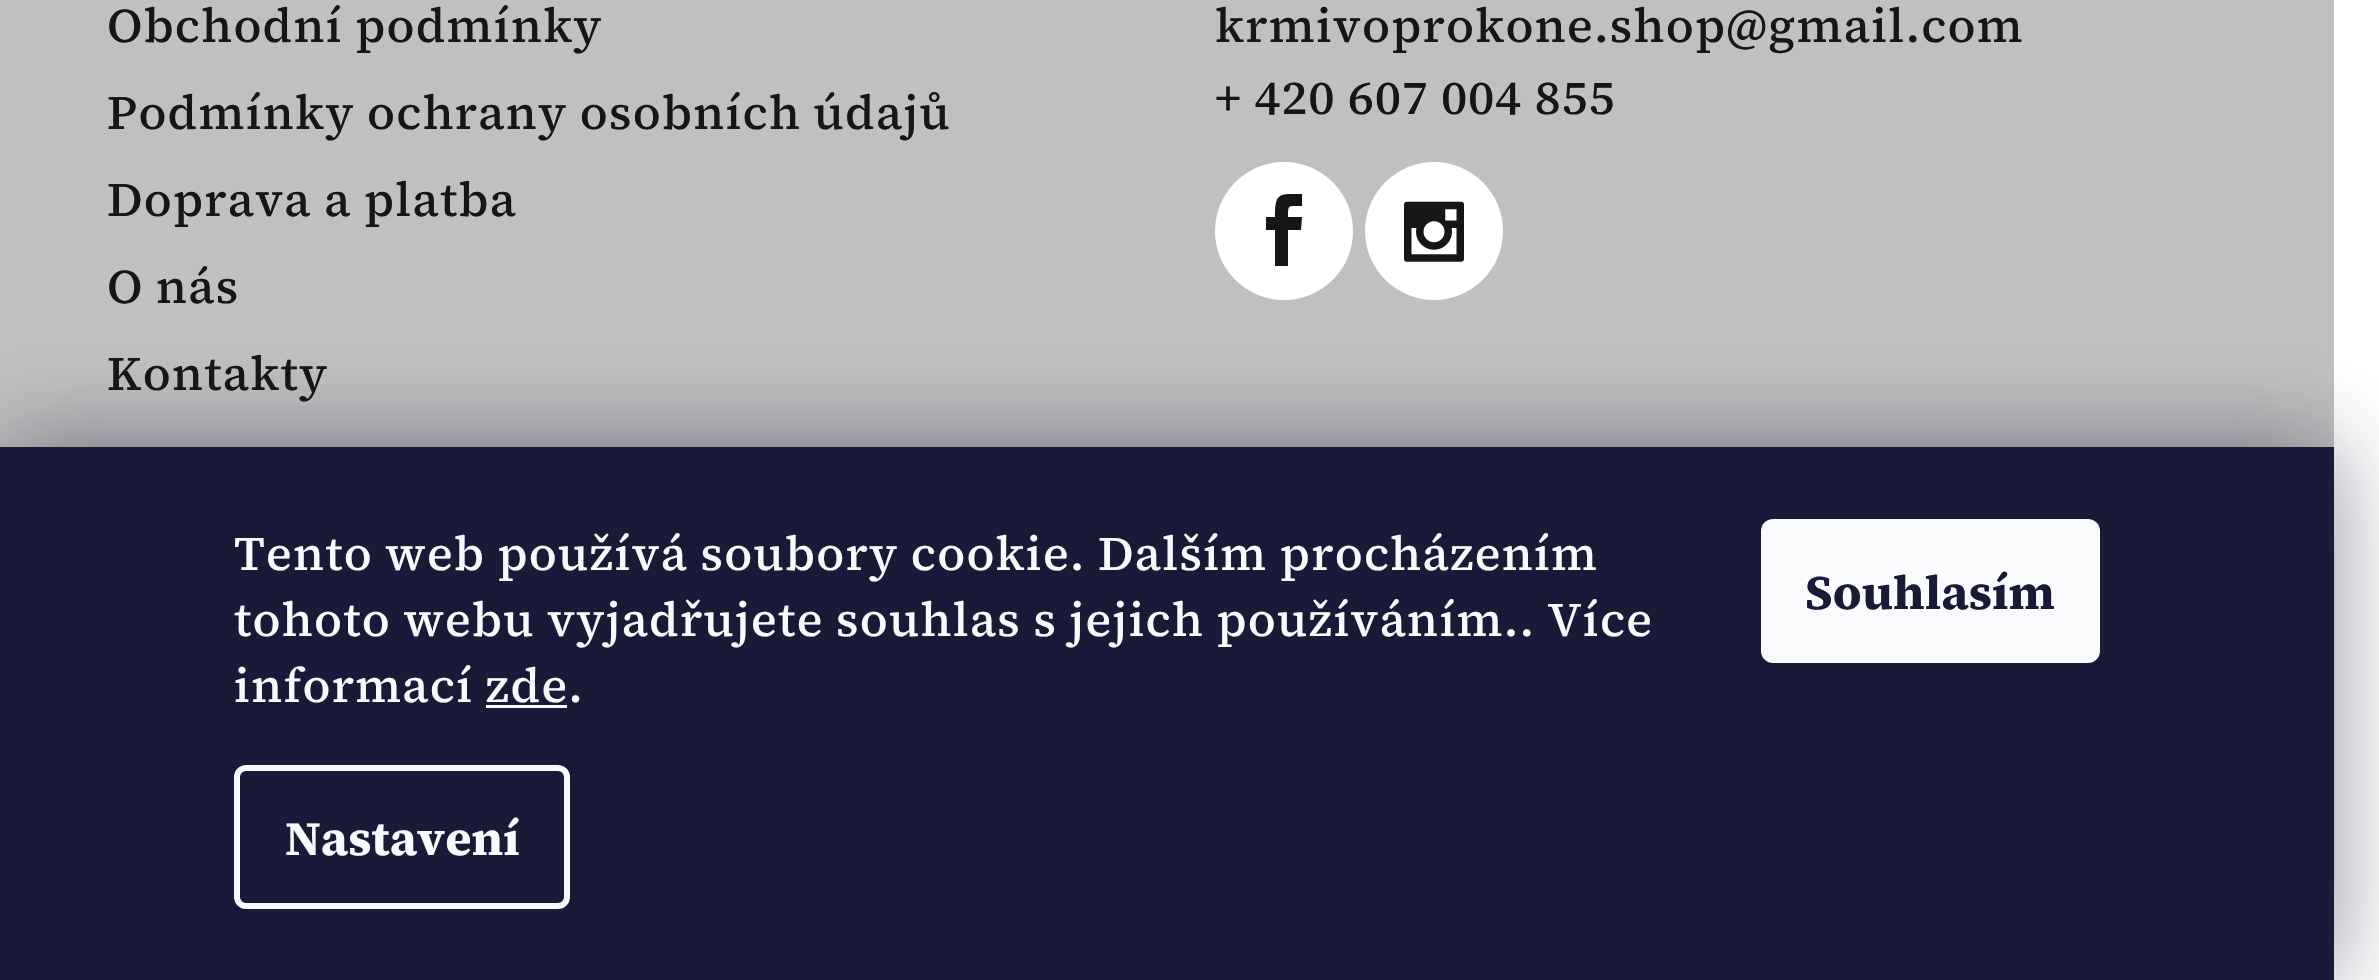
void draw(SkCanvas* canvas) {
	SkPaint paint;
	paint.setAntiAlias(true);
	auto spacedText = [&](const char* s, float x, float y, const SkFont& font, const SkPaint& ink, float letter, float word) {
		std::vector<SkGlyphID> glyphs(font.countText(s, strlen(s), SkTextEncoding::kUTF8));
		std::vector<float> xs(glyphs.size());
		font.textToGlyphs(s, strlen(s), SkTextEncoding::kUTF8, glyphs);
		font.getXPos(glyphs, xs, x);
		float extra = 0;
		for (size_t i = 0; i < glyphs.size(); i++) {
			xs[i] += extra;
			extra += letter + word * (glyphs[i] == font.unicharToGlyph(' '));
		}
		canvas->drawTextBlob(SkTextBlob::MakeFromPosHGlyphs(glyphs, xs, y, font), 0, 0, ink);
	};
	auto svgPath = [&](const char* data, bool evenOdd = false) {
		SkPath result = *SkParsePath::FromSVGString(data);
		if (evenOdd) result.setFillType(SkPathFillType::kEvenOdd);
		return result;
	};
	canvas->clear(0xffffffff);
	paint.setColor(0xffc0c0c0);
	canvas->drawRect(SkRect::MakeXYWH(0, 0, 2334, 447), paint);
	SkFont f1(fontMgr->matchFamilyStyle("Source Serif 4", SkFontStyle(500, SkFontStyle::kNormal_Width, SkFontStyle::kUpright_Slant)), 48);
	f1.setSubpixel(true);
	paint.setColor(0xff161616);
	spacedText("Obchodní podmínky", 107, 42, f1, paint, 1.2, 0);
	spacedText("Podmínky ochrany osobních údajů", 107, 129, f1, paint, 1.2, 0);
	spacedText("Doprava a platba", 107, 216, f1, paint, 1.2, 0);
	spacedText("O nás", 107, 303, f1, paint, 1.2, 0);
	spacedText("Kontakty", 107, 390, f1, paint, 1.2, 0);
	spacedText("krmivoprokone.shop@gmail.com", 1215, 42, f1, paint, 1.2, 0);
	spacedText("+ 420 607 004 855", 1215, 114, f1, paint, 1.2, 0);
	paint.setColor(0xffffffff);
	canvas->drawCircle(1284, 231, 69, paint);
	paint.setColor(0xff161616);
	canvas->drawPath(svgPath("M1275 266H1288V230H1301L1302 217H1288C1288 204 1288 206 1302 206V194C1279 194 1275 192 1275 217H1266V230H1275Z"), paint);
	paint.setColor(0xffffffff);
	canvas->drawCircle(1434, 231, 69, paint);
	canvas->drawImageRect(SkImages::DeferredFromEncodedData(SkData::MakeFromFileName("img1.png")), SkRect::MakeXYWH(1404, 201, 60, 61), SkSamplingOptions());
	paint.setColor(0x801b1939);
	paint.setMaskFilter(SkMaskFilter::MakeBlur(kNormal_SkBlurStyle, 45));
	canvas->drawRect(SkRect::MakeXYWH(0, 447, 2334, 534), paint);
	paint.setMaskFilter(nullptr);
	paint.setColor(0xff1a1937);
	canvas->drawRect(SkRect::MakeXYWH(0, 447, 2334, 533), paint);
	paint.setColor(0xfff8fafb);
	spacedText("Tento web používá soubory cookie. Dalším procházením", 234, 570, f1, paint, 1.2, 0);
	spacedText("tohoto webu vyjadřujete souhlas s jejich používáním.. Více", 234, 636, f1, paint, 1.2, 0);
	spacedText("informací zde.", 234, 702, f1, paint, 1.2, 0);
	canvas->drawRect(SkRect::MakeXYWH(486, 705, 81, 3), paint);
	paint.setStroke(true);
	paint.setStrokeWidth(6);
	canvas->drawRoundRect(SkRect::MakeXYWH(237, 768, 330, 138), 9, 9, paint);
	SkFont f2(fontMgr->matchFamilyStyle("Source Serif 4", SkFontStyle::Bold()), 48);
	f2.setSubpixel(true);
	paint.setStroke(false);
	canvas->drawString("Nastavení", 285, 855, f2, paint);
	canvas->drawRoundRect(SkRect::MakeXYWH(1761, 519, 339, 144), 12, 12, paint);
	paint.setColor(0xff1a1937);
	canvas->drawString("Souhlasím", 1805, 609, f2, paint);
}
